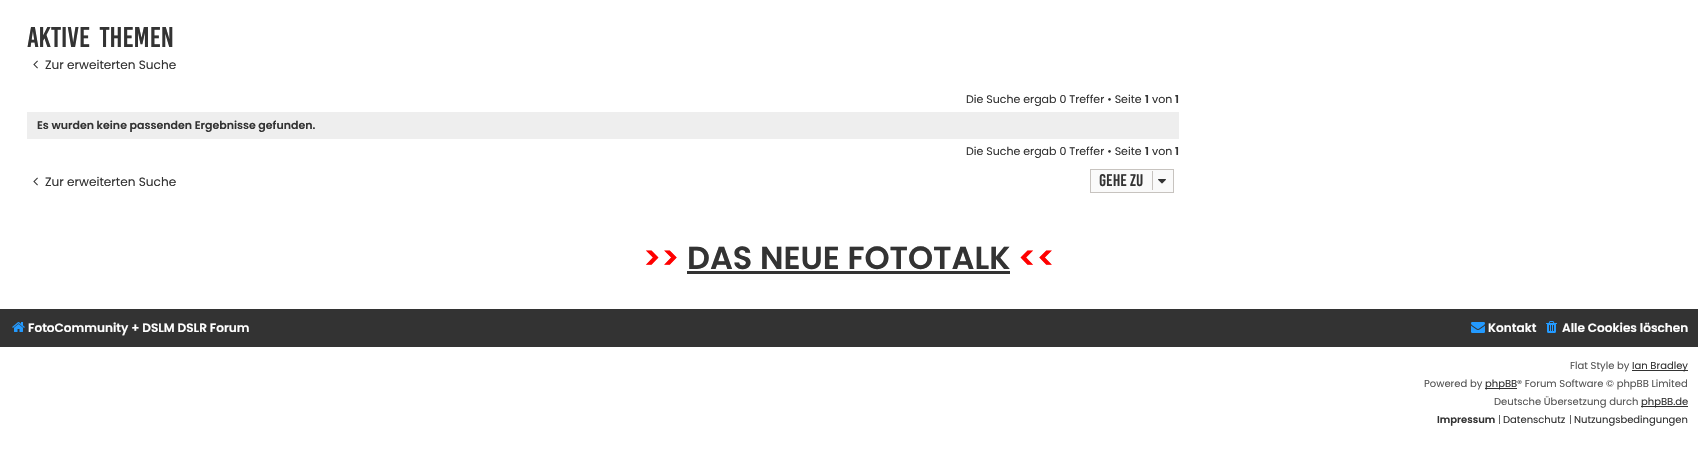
void draw(SkCanvas* canvas) {
	SkPaint paint;
	paint.setAntiAlias(true);
	auto spacedText = [&](const char* s, float x, float y, const SkFont& font, const SkPaint& ink, float letter, float word) {
		std::vector<SkGlyphID> glyphs(font.countText(s, strlen(s), SkTextEncoding::kUTF8));
		std::vector<float> xs(glyphs.size());
		font.textToGlyphs(s, strlen(s), SkTextEncoding::kUTF8, glyphs);
		font.getXPos(glyphs, xs, x);
		float extra = 0;
		for (size_t i = 0; i < glyphs.size(); i++) {
			xs[i] += extra;
			extra += letter + word * (glyphs[i] == font.unicharToGlyph(' '));
		}
		canvas->drawTextBlob(SkTextBlob::MakeFromPosHGlyphs(glyphs, xs, y, font), 0, 0, ink);
	};
	canvas->clear(0xffffffff);
	SkFont f1(fontMgr->matchFamilyStyle("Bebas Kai", SkFontStyle::Normal()), 22);
	f1.setSubpixel(true);
	paint.setColor(0xff333333);
	spacedText("Aktive Themen", 27, 47, f1, paint, 0, 4);
	canvas->drawImageRect(SkImages::DeferredFromEncodedData(SkData::MakeFromFileName("img1.png")), SkRect::MakeXYWH(33, 60, 5, 9), SkSamplingOptions());
	SkFont f2(fontMgr->matchFamilyStyle("Poppins", SkFontStyle::Normal()), 12.1);
	f2.setSubpixel(true);
	canvas->drawString("Zur erweiterten Suche", 45, 69, f2, paint);
	SkFont f3(fontMgr->matchFamilyStyle("Poppins", SkFontStyle::Normal()), 11);
	f3.setSubpixel(true);
	canvas->drawString("Die Suche ergab 0 Treffer • Seite", 966, 103, f3, paint);
	SkFont f4(fontMgr->matchFamilyStyle("Poppins", SkFontStyle(600, SkFontStyle::kNormal_Width, SkFontStyle::kUpright_Slant)), 11);
	f4.setSubpixel(true);
	canvas->drawString("1", 1145, 103, f4, paint);
	canvas->drawString("von", 1152, 103, f3, paint);
	canvas->drawString("1", 1175, 103, f4, paint);
	paint.setColor(0xffeeeeee);
	canvas->drawRect(SkRect::MakeXYWH(27, 112, 1152, 27), paint);
	paint.setColor(0xff333333);
	canvas->drawString("Es wurden keine passenden Ergebnisse gefunden.", 37, 129, f4, paint);
	canvas->drawString("Die Suche ergab 0 Treffer • Seite", 966, 155, f3, paint);
	canvas->drawString("1", 1145, 155, f4, paint);
	canvas->drawString("von", 1152, 155, f3, paint);
	canvas->drawString("1", 1175, 155, f4, paint);
	canvas->drawImageRect(SkImages::DeferredFromEncodedData(SkData::MakeFromFileName("img1.png")), SkRect::MakeXYWH(33, 177, 5, 9), SkSamplingOptions());
	canvas->drawString("Zur erweiterten Suche", 45, 186, f2, paint);
	paint.setColor(0xfffafafa);
	canvas->drawRect(SkRect::MakeXYWH(1090.5, 169.5, 83, 23), paint);
	paint.setStroke(true);
	paint.setStrokeWidth(1);
	paint.setColor(0xffc7c3bf);
	canvas->drawRect(SkRect::MakeXYWH(1090.5, 169.5, 83, 23), paint);
	SkFont f5(fontMgr->matchFamilyStyle("Bebas Kai", SkFontStyle::Normal()), 13);
	f5.setSubpixel(true);
	paint.setStroke(false);
	paint.setColor(0xff333333);
	canvas->drawString("Gehe zu", 1099, 186, f5, paint);
	paint.setColor(0xffc7c3bf);
	canvas->drawRect(SkRect::MakeXYWH(1152, 171, 1, 19), paint);
	canvas->drawImageRect(SkImages::DeferredFromEncodedData(SkData::MakeFromFileName("img2.png")), SkRect::MakeXYWH(1158, 179, 8, 5), SkSamplingOptions());
	SkFont f6(fontMgr->matchFamilyStyle("Poppins", SkFontStyle(600, SkFontStyle::kNormal_Width, SkFontStyle::kUpright_Slant)), 32);
	f6.setSubpixel(true);
	paint.setColor(0xffff0000);
	canvas->drawString(">>", 643, 269, f6, paint);
	paint.setColor(0xff333333);
	canvas->drawString("DAS NEUE FOTOTALK", 687, 269, f6, paint);
	canvas->drawRect(SkRect::MakeXYWH(687, 271, 323, 3), paint);
	paint.setColor(0xffff0000);
	canvas->drawString("<<", 1018, 269, f6, paint);
	paint.setColor(0xff333333);
	canvas->drawRect(SkRect::MakeXYWH(0, 309, 1698, 38), paint);
	canvas->drawImageRect(SkImages::DeferredFromEncodedData(SkData::MakeFromFileName("img3.png")), SkRect::MakeXYWH(12, 322, 13, 10), SkSamplingOptions());
	SkFont f7(fontMgr->matchFamilyStyle("Poppins", SkFontStyle(600, SkFontStyle::kNormal_Width, SkFontStyle::kUpright_Slant)), 12.1);
	f7.setSubpixel(true);
	paint.setColor(0xffffffff);
	canvas->drawString("FotoCommunity + DSLM DSLR Forum", 28, 332, f7, paint);
	canvas->drawImageRect(SkImages::DeferredFromEncodedData(SkData::MakeFromFileName("img4.png")), SkRect::MakeXYWH(1471, 322, 14, 11), SkSamplingOptions());
	canvas->drawString("Kontakt", 1488, 332, f7, paint);
	canvas->drawImageRect(SkImages::DeferredFromEncodedData(SkData::MakeFromFileName("img5.png")), SkRect::MakeXYWH(1546, 321, 11, 12), SkSamplingOptions());
	canvas->drawString("Alle Cookies löschen", 1562, 332, f7, paint);
	SkFont f8(fontMgr->matchFamilyStyle("Poppins", SkFontStyle::Normal()), 10);
	f8.setSubpixel(true);
	paint.setColor(0xff555555);
	canvas->drawString("Flat Style by", 1570, 369, f8, paint);
	paint.setColor(0xff333333);
	canvas->drawRect(SkRect::MakeXYWH(1632, 370, 56, 1), paint);
	canvas->drawString("Ian Bradley", 1632, 369, f8, paint);
	paint.setColor(0xff555555);
	canvas->drawString("Powered by", 1424, 387, f8, paint);
	paint.setColor(0xff333333);
	canvas->drawRect(SkRect::MakeXYWH(1485, 388, 32, 1), paint);
	canvas->drawString("phpBB", 1485, 387, f8, paint);
	paint.setColor(0xff555555);
	canvas->drawString("® Forum Software © phpBB Limited", 1517, 387, f8, paint);
	canvas->drawString("Deutsche Übersetzung durch", 1494, 405, f8, paint);
	paint.setColor(0xff333333);
	canvas->drawRect(SkRect::MakeXYWH(1641, 406, 47, 1), paint);
	canvas->drawString("phpBB.de", 1641, 405, f8, paint);
	SkFont f9(fontMgr->matchFamilyStyle("Poppins", SkFontStyle(600, SkFontStyle::kNormal_Width, SkFontStyle::kUpright_Slant)), 10);
	f9.setSubpixel(true);
	canvas->drawString("Impressum", 1437, 423, f9, paint);
	paint.setColor(0xff555555);
	canvas->drawString("|", 1498, 423, f8, paint);
	paint.setColor(0xff333333);
	canvas->drawString("Datenschutz", 1503, 423, f8, paint);
	paint.setColor(0xff555555);
	canvas->drawString("|", 1569, 423, f8, paint);
	paint.setColor(0xff333333);
	canvas->drawString("Nutzungsbedingungen", 1574, 423, f8, paint);
}
